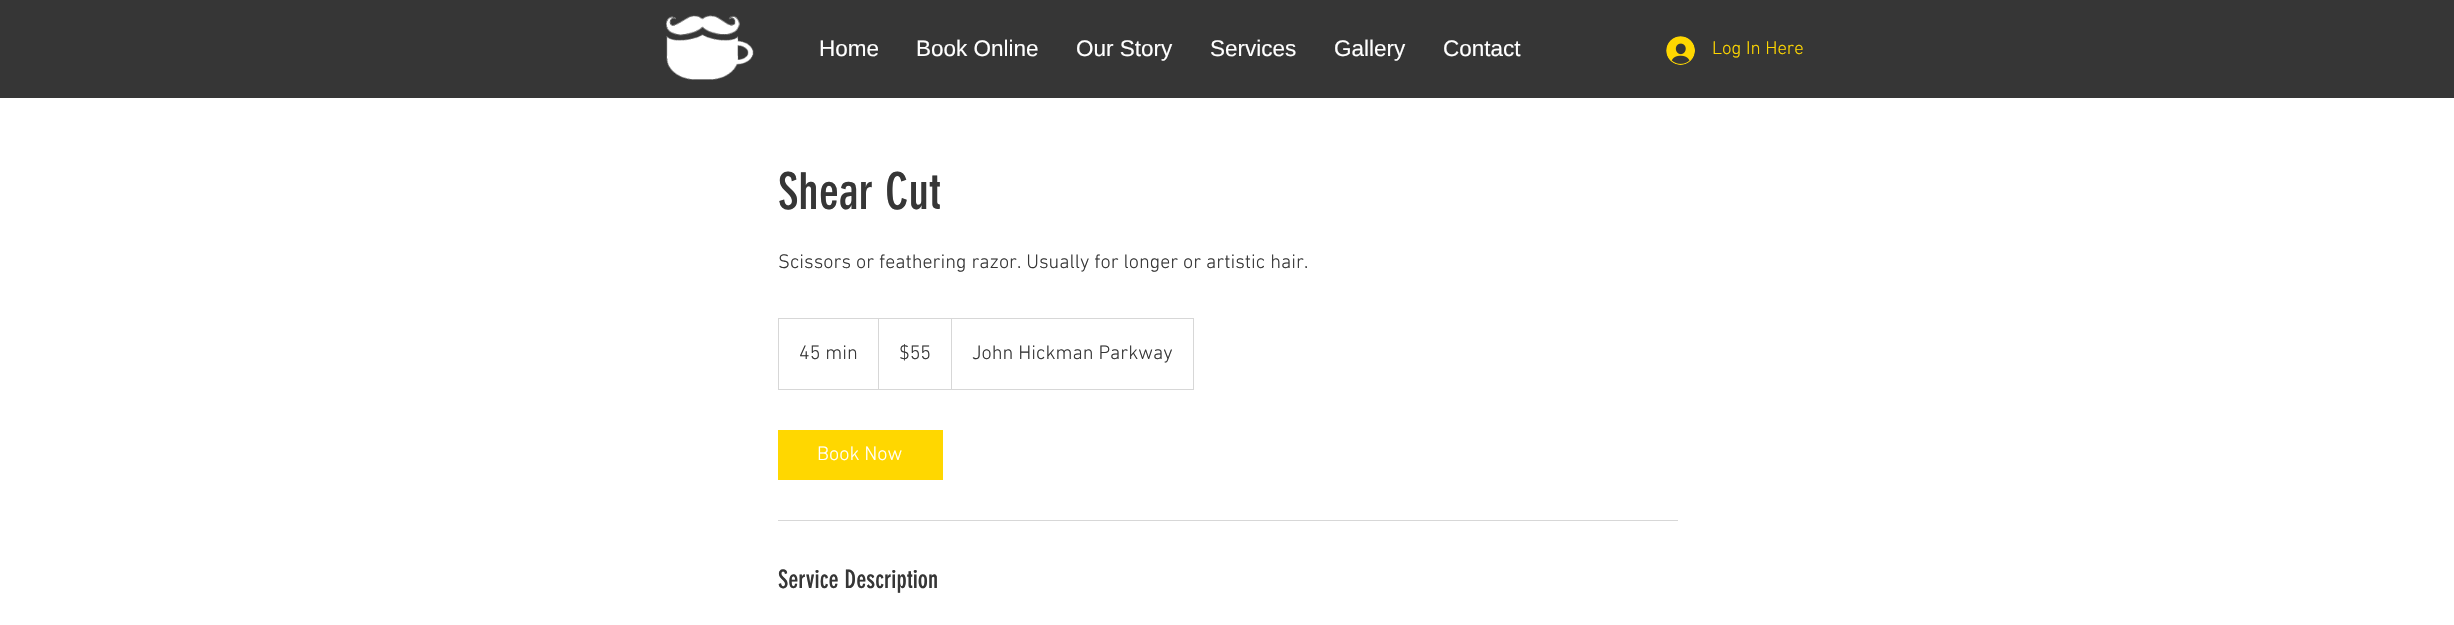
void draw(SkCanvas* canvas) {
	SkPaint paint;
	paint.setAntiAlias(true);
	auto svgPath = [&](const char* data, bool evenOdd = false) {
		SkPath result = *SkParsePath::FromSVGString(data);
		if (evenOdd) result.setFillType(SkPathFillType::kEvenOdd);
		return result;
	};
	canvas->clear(0xffffffff);
	paint.setColor(0xff363636);
	canvas->drawRect(SkRect::MakeXYWH(0, 0, 2454, 98), paint);
	canvas->drawImageRect(SkImages::DeferredFromEncodedData(SkData::MakeFromFileName("img1.png")), SkRect::MakeXYWH(666, 15, 88, 65), SkSamplingOptions());
	SkFont f1(fontMgr->matchFamilyStyle("Liberation Sans", SkFontStyle::Normal()), 22.5);
	f1.setSubpixel(true);
	paint.setColor(0xffffffff);
	canvas->drawString("Home", 819, 56, f1, paint);
	canvas->drawString("Book Online", 916, 56, f1, paint);
	canvas->drawString("Our Story", 1076, 56, f1, paint);
	canvas->drawString("Services", 1210, 56, f1, paint);
	canvas->drawString("Gallery", 1334, 56, f1, paint);
	canvas->drawString("Contact", 1443, 56, f1, paint);
	canvas->drawImageRect(SkImages::DeferredFromEncodedData(SkData::MakeFromFileName("img2.png")), SkRect::MakeXYWH(1666, 36, 29, 29), SkSamplingOptions());
	SkFont f2(fontMgr->matchFamilyStyle("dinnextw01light", SkFontStyle(300, SkFontStyle::kNormal_Width, SkFontStyle::kUpright_Slant)), 18.75);
	f2.setSubpixel(true);
	paint.setColor(0xffffd700);
	canvas->drawString("Log In Here", 1712, 54, f2, paint);
	SkFont f3(fontMgr->matchFamilyStyle("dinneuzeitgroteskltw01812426", SkFontStyle::Normal()), 50);
	f3.setSubpixel(true);
	paint.setColor(0xff363636);
	canvas->drawString("Shear Cut", 778, 209, f3, paint);
	SkFont f4(fontMgr->matchFamilyStyle("dinnextw01light", SkFontStyle(300, SkFontStyle::kNormal_Width, SkFontStyle::kUpright_Slant)), 20);
	f4.setSubpixel(true);
	canvas->drawString("Scissors or feathering razor. Usually for longer or artistic hair.", 778, 268, f4, paint);
	paint.setStroke(true);
	paint.setStrokeWidth(1);
	paint.setColor(0xffd7d7d7);
	canvas->drawRect(SkRect::MakeXYWH(778.5, 318.5, 415, 71), paint);
	paint.setStroke(false);
	paint.setColor(0xff363636);
	canvas->drawString("45 min", 799, 359, f4, paint);
	paint.setColor(0xffd7d7d7);
	canvas->drawPath(svgPath("M878 389V318L879 319V389Z"), paint);
	paint.setColor(0xff363636);
	canvas->drawString("$55", 899, 359, f4, paint);
	paint.setColor(0xffd7d7d7);
	canvas->drawPath(svgPath("M951 389V318L952 319V389Z"), paint);
	paint.setColor(0xff363636);
	canvas->drawString("John Hickman Parkway", 972, 359, f4, paint);
	paint.setColor(0xffffd700);
	canvas->drawRect(SkRect::MakeXYWH(778, 430, 165, 50), paint);
	paint.setColor(0xffffffff);
	canvas->drawString("Book Now", 817, 460, f4, paint);
	paint.setColor(0xffd7d7d7);
	canvas->drawRect(SkRect::MakeXYWH(778, 520, 900, 1), paint);
	SkFont f5(fontMgr->matchFamilyStyle("dinneuzeitgroteskltw01812426", SkFontStyle::Normal()), 25);
	f5.setSubpixel(true);
	paint.setColor(0xff363636);
	canvas->drawString("Service Description", 778, 588, f5, paint);
}
